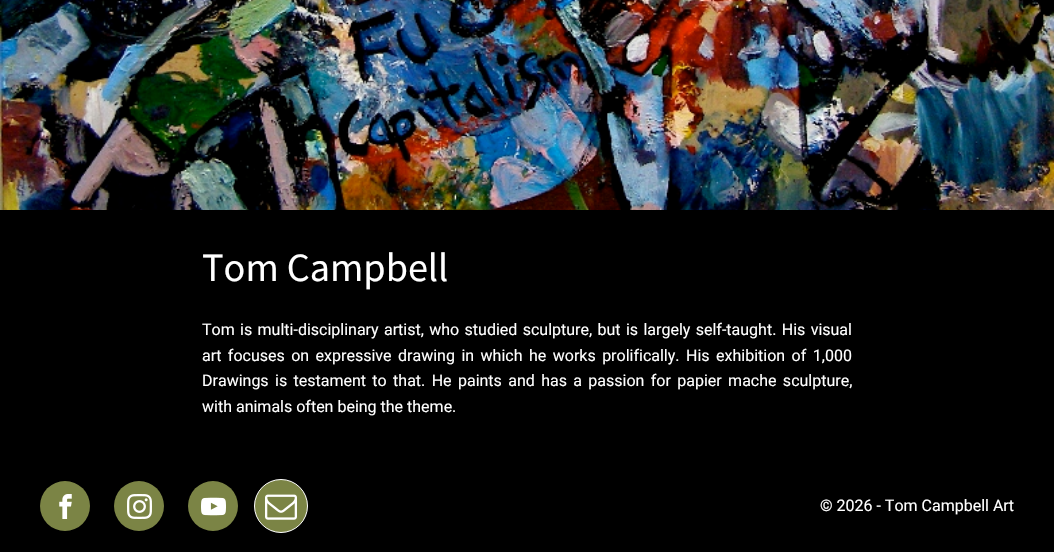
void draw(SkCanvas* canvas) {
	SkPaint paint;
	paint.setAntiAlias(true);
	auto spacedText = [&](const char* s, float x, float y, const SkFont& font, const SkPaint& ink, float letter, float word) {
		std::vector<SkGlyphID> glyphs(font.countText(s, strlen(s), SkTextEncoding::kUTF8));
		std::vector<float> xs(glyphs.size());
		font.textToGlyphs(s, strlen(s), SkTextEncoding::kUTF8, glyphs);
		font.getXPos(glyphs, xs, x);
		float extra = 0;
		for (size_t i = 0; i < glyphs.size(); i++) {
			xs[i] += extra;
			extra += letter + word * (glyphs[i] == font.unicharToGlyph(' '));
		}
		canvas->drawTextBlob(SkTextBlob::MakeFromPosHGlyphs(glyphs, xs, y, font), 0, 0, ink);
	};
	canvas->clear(0xffffffff);
	canvas->drawImageRect(SkImages::DeferredFromEncodedData(SkData::MakeFromFileName("img1.png")), SkRect::MakeXYWH(0, 0, 1054, 210), SkSamplingOptions());
	paint.setColor(0xff000000);
	canvas->drawRect(SkRect::MakeXYWH(0, 210, 1054, 342), paint);
	SkFont f1(fontMgr->matchFamilyStyle("Noto Sans JP", SkFontStyle::Normal()), 36);
	f1.setSubpixel(true);
	paint.setColor(0xffffffff);
	canvas->drawString("Tom Campbell", 202, 281, f1, paint);
	SkFont f2(fontMgr->matchFamilyStyle("Roboto", SkFontStyle::Normal()), 16);
	f2.setSubpixel(true);
	spacedText("Tom is multi-disciplinary artist, who studied sculpture, but is largely self-taught. His visual", 202, 335, f2, paint, 0, 1.4);
	spacedText("art focuses on expressive drawing in which he works prolifically. His exhibition of 1,000", 202, 361, f2, paint, 0, 2.5);
	spacedText("Drawings is testament to that. He paints and has a passion for papier mache sculpture,", 202, 386, f2, paint, 0, 2.4);
	canvas->drawString("with animals often being the theme.", 202, 412, f2, paint);
	paint.setColor(0xff7b8445);
	canvas->drawCircle(65, 506, 25, paint);
	canvas->drawImageRect(SkImages::DeferredFromEncodedData(SkData::MakeFromFileName("img2.png")), SkRect::MakeXYWH(59, 494, 13, 25), SkSamplingOptions());
	canvas->drawCircle(139, 506, 25, paint);
	canvas->drawImageRect(SkImages::DeferredFromEncodedData(SkData::MakeFromFileName("img3.png")), SkRect::MakeXYWH(127, 494, 25, 25), SkSamplingOptions());
	canvas->drawCircle(213, 506, 25, paint);
	canvas->drawImageRect(SkImages::DeferredFromEncodedData(SkData::MakeFromFileName("img4.png")), SkRect::MakeXYWH(201, 497, 25, 19), SkSamplingOptions());
	canvas->drawCircle(281, 506, 26.5, paint);
	paint.setStroke(true);
	paint.setStrokeWidth(1);
	paint.setColor(0xffffffff);
	canvas->drawCircle(281, 506, 26.5, paint);
	canvas->drawImageRect(SkImages::DeferredFromEncodedData(SkData::MakeFromFileName("img5.png")), SkRect::MakeXYWH(265, 494, 32, 26), SkSamplingOptions());
	paint.setStroke(false);
	canvas->drawString("© 2026 - Tom Campbell Art", 820, 511, f2, paint);
}
